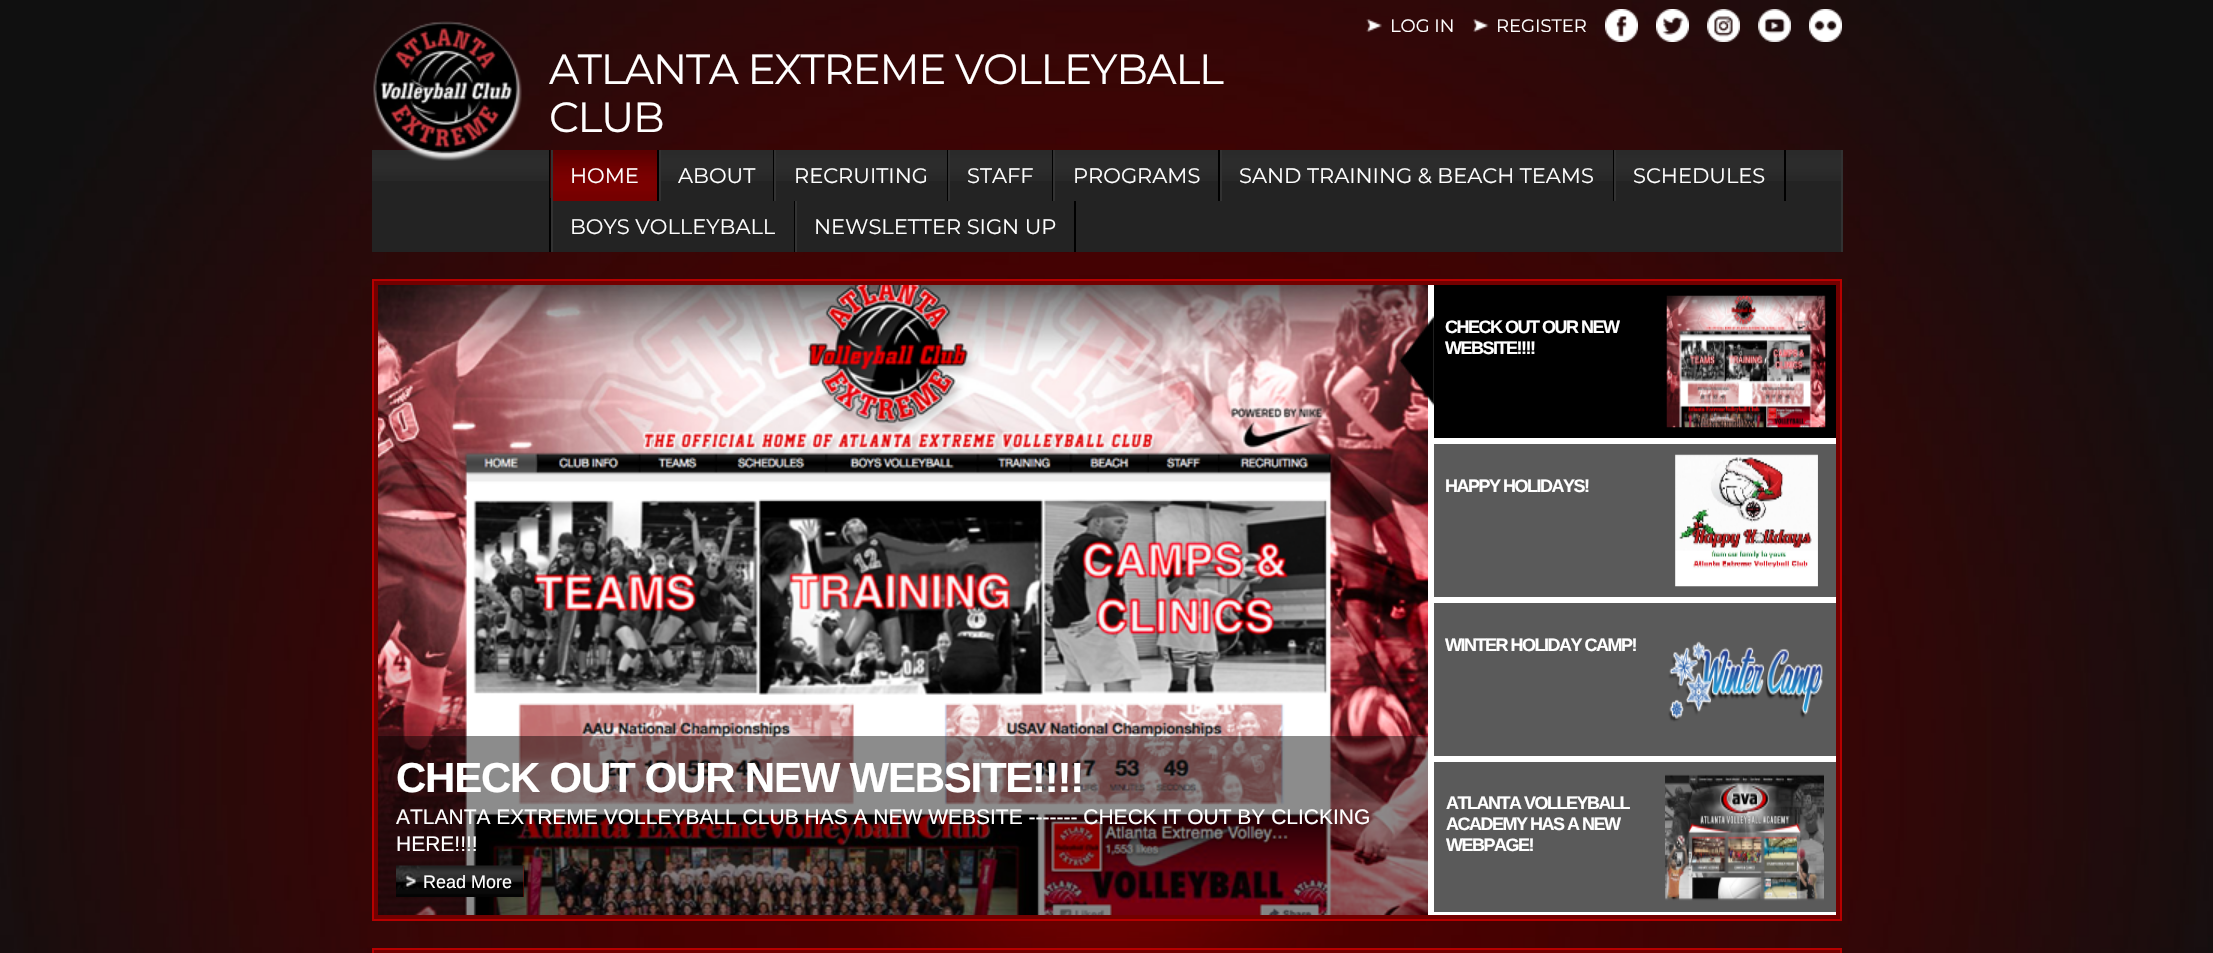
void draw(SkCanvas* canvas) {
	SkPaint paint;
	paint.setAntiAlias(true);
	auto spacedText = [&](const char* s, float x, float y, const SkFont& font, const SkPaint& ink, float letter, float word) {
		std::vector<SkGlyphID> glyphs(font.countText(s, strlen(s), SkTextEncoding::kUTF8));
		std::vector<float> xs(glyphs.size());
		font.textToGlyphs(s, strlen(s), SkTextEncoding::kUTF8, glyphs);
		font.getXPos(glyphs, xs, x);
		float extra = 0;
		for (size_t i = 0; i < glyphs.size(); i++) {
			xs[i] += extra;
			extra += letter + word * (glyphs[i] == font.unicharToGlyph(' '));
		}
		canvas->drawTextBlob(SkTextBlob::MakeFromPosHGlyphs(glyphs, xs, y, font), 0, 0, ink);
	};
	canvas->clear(0xffffffff);
	canvas->drawImageRect(SkImages::DeferredFromEncodedData(SkData::MakeFromFileName("img1.png")), SkRect::MakeXYWH(0, 0, 2213, 953), SkSamplingOptions());
	canvas->drawImageRect(SkImages::DeferredFromEncodedData(SkData::MakeFromFileName("img2.png")), SkRect::MakeXYWH(1366, 19, 16, 13), SkSamplingOptions());
	SkFont f1(fontMgr->matchFamilyStyle("Montserrat", SkFontStyle::Normal()), 18);
	f1.setSubpixel(true);
	paint.setColor(0xffffffff);
	canvas->drawString("LOG IN", 1390, 32, f1, paint);
	canvas->drawImageRect(SkImages::DeferredFromEncodedData(SkData::MakeFromFileName("img3.png")), SkRect::MakeXYWH(1473, 19, 16, 13), SkSamplingOptions());
	canvas->drawString("REGISTER", 1496, 32, f1, paint);
	canvas->drawImageRect(SkImages::DeferredFromEncodedData(SkData::MakeFromFileName("img4.png")), SkRect::MakeXYWH(1605, 9, 33, 33), SkSamplingOptions());
	canvas->drawImageRect(SkImages::DeferredFromEncodedData(SkData::MakeFromFileName("img5.png")), SkRect::MakeXYWH(1656, 9, 33, 33), SkSamplingOptions());
	canvas->drawImageRect(SkImages::DeferredFromEncodedData(SkData::MakeFromFileName("img6.png")), SkRect::MakeXYWH(1707, 9, 33, 33), SkSamplingOptions());
	canvas->drawImageRect(SkImages::DeferredFromEncodedData(SkData::MakeFromFileName("img7.png")), SkRect::MakeXYWH(1758, 9, 33, 33), SkSamplingOptions());
	canvas->drawImageRect(SkImages::DeferredFromEncodedData(SkData::MakeFromFileName("img8.png")), SkRect::MakeXYWH(1809, 9, 33, 33), SkSamplingOptions());
	canvas->drawImageRect(SkImages::DeferredFromEncodedData(SkData::MakeFromFileName("img10.png")), SkRect::MakeXYWH(372, 150, 1469, 31), SkSamplingOptions());
	canvas->drawImageRect(SkImages::DeferredFromEncodedData(SkData::MakeFromFileName("img9.png")), SkRect::MakeXYWH(373, 21, 149, 140), SkSamplingOptions());
	SkFont f2(fontMgr->matchFamilyStyle("Montserrat", SkFontStyle::Normal()), 42);
	f2.setSubpixel(true);
	spacedText("ATLANTA EXTREME VOLLEYBALL", 549, 84, f2, paint, -1.25, 0);
	spacedText("CLUB", 549, 132, f2, paint, -1.25, 0);
	paint.setColor(0xff232323);
	canvas->drawRect(SkRect::MakeXYWH(372, 181, 1469, 71), paint);
	paint.setColor(0xff323232);
	canvas->drawRect(SkRect::MakeXYWH(1841, 150, 2, 102), paint);
	paint.setColor(0xff000000);
	canvas->drawRect(SkRect::MakeXYWH(549, 150, 2, 102), paint);
	paint.setColor(0xff760000);
	canvas->drawRect(SkRect::MakeXYWH(553, 198, 104, 3), paint);
	canvas->drawImageRect(SkImages::DeferredFromEncodedData(SkData::MakeFromFileName("img11.png")), SkRect::MakeXYWH(550, 150, 107, 48), SkSamplingOptions());
	paint.setColor(0xff000000);
	canvas->drawRect(SkRect::MakeXYWH(657, 150, 2, 51), paint);
	paint.setColor(0xff323232);
	canvas->drawRect(SkRect::MakeXYWH(551, 150, 2, 102), paint);
	SkFont f3(fontMgr->matchFamilyStyle("Montserrat", SkFontStyle::Normal()), 21);
	f3.setSubpixel(true);
	paint.setColor(0xffffffff);
	canvas->drawString("HOME", 570, 183, f3, paint);
	paint.setColor(0xff000000);
	canvas->drawRect(SkRect::MakeXYWH(773, 150, 1, 51), paint);
	paint.setColor(0xff323232);
	canvas->drawRect(SkRect::MakeXYWH(659, 150, 2, 51), paint);
	paint.setColor(0xffffffff);
	canvas->drawString("ABOUT", 678, 183, f3, paint);
	paint.setColor(0xff000000);
	canvas->drawRect(SkRect::MakeXYWH(947, 150, 1, 51), paint);
	paint.setColor(0xff323232);
	canvas->drawRect(SkRect::MakeXYWH(774, 150, 2, 51), paint);
	paint.setColor(0xffffffff);
	canvas->drawString("RECRUITING", 794, 183, f3, paint);
	paint.setColor(0xff000000);
	canvas->drawRect(SkRect::MakeXYWH(1052, 150, 1, 51), paint);
	paint.setColor(0xff323232);
	canvas->drawRect(SkRect::MakeXYWH(948, 150, 2, 51), paint);
	paint.setColor(0xffffffff);
	canvas->drawString("STAFF", 967, 183, f3, paint);
	paint.setColor(0xff000000);
	canvas->drawRect(SkRect::MakeXYWH(1218, 150, 2, 51), paint);
	paint.setColor(0xff323232);
	canvas->drawRect(SkRect::MakeXYWH(1053, 150, 2, 51), paint);
	paint.setColor(0xffffffff);
	canvas->drawString("PROGRAMS", 1073, 183, f3, paint);
	paint.setColor(0xff000000);
	canvas->drawRect(SkRect::MakeXYWH(1613, 150, 1, 51), paint);
	paint.setColor(0xff323232);
	canvas->drawRect(SkRect::MakeXYWH(1220, 150, 2, 51), paint);
	paint.setColor(0xffffffff);
	canvas->drawString("SAND TRAINING & BEACH TEAMS", 1239, 183, f3, paint);
	paint.setColor(0xff000000);
	canvas->drawRect(SkRect::MakeXYWH(1784, 150, 2, 51), paint);
	paint.setColor(0xff323232);
	canvas->drawRect(SkRect::MakeXYWH(1614, 150, 2, 51), paint);
	paint.setColor(0xffffffff);
	canvas->drawString("SCHEDULES", 1633, 183, f3, paint);
	paint.setColor(0xff000000);
	canvas->drawRect(SkRect::MakeXYWH(794, 201, 1, 51), paint);
	paint.setColor(0xffffffff);
	canvas->drawString("BOYS VOLLEYBALL", 570, 234, f3, paint);
	paint.setColor(0xff000000);
	canvas->drawRect(SkRect::MakeXYWH(1074, 201, 2, 51), paint);
	paint.setColor(0xff323232);
	canvas->drawRect(SkRect::MakeXYWH(795, 201, 2, 51), paint);
	paint.setColor(0xffffffff);
	canvas->drawString("NEWSLETTER SIGN UP", 814, 234, f3, paint);
	paint.setColor(0xff720000);
	canvas->drawRect(SkRect::MakeXYWH(373, 280, 1468, 640), paint);
	paint.setStroke(true);
	paint.setStrokeWidth(2);
	paint.setColor(0xffb70000);
	canvas->drawRect(SkRect::MakeXYWH(373, 280, 1468, 640), paint);
	paint.setStroke(false);
	paint.setColor(0xffffffff);
	canvas->drawRect(SkRect::MakeXYWH(1428, 285, 408, 630), paint);
	canvas->drawImageRect(SkImages::DeferredFromEncodedData(SkData::MakeFromFileName("img12.png")), SkRect::MakeXYWH(378, 285, 1050, 630), SkSamplingOptions());
	paint.setColor(0x73000000);
	canvas->drawRect(SkRect::MakeXYWH(378, 736, 1050, 179), paint);
	SkFont f4(fontMgr->matchFamilyStyle("Liberation Sans", SkFontStyle::Bold()), 42);
	f4.setSubpixel(true);
	paint.setColor(0xffffffff);
	spacedText("CHECK OUT OUR NEW WEBSITE!!!!", 396, 792, f4, paint, -1.25, 0);
	SkFont f5(fontMgr->matchFamilyStyle("Liberation Sans", SkFontStyle::Normal()), 21);
	f5.setSubpixel(true);
	canvas->drawString("ATLANTA EXTREME VOLLEYBALL CLUB HAS A NEW WEBSITE ------- CHECK IT OUT BY CLICKING", 396, 824, f5, paint);
	canvas->drawString("HERE!!!!", 396, 851, f5, paint);
	paint.setColor(0xff941000);
	canvas->drawRect(SkRect::MakeXYWH(523, 866, 1, 31), paint);
	canvas->drawImageRect(SkImages::DeferredFromEncodedData(SkData::MakeFromFileName("img13.png")), SkRect::MakeXYWH(396, 865, 128, 32), SkSamplingOptions());
	SkFont f6(fontMgr->matchFamilyStyle("Liberation Sans", SkFontStyle::Normal()), 18);
	f6.setSubpixel(true);
	paint.setColor(0xffffffff);
	canvas->drawString("Read More", 423, 888, f6, paint);
	paint.setColor(0xff000000);
	canvas->drawRect(SkRect::MakeXYWH(1434, 285, 402, 153), paint);
	canvas->drawImageRect(SkImages::DeferredFromEncodedData(SkData::MakeFromFileName("img14.png")), SkRect::MakeXYWH(1399, 316, 35, 90), SkSamplingOptions());
	SkFont f7(fontMgr->matchFamilyStyle("Liberation Sans", SkFontStyle::Bold()), 18);
	f7.setSubpixel(true);
	paint.setColor(0xffffffff);
	spacedText("CHECK OUT OUR NEW", 1445, 333, f7, paint, -1.5, 0);
	spacedText("WEBSITE!!!!", 1445, 354, f7, paint, -1.5, 0);
	canvas->drawImageRect(SkImages::DeferredFromEncodedData(SkData::MakeFromFileName("img15.png")), SkRect::MakeXYWH(1666, 295, 160, 133), SkSamplingOptions());
	paint.setColor(0xff5a5a5a);
	canvas->drawRect(SkRect::MakeXYWH(1434, 444, 402, 153), paint);
	paint.setColor(0xffffffff);
	spacedText("HAPPY HOLIDAYS!", 1445, 492, f7, paint, -1.5, 0);
	canvas->drawImageRect(SkImages::DeferredFromEncodedData(SkData::MakeFromFileName("img16.png")), SkRect::MakeXYWH(1675, 454, 143, 133), SkSamplingOptions());
	paint.setColor(0xff5a5a5a);
	canvas->drawRect(SkRect::MakeXYWH(1434, 603, 402, 153), paint);
	paint.setColor(0xffffffff);
	spacedText("WINTER HOLIDAY CAMP!", 1445, 651, f7, paint, -1.5, 0);
	canvas->drawImageRect(SkImages::DeferredFromEncodedData(SkData::MakeFromFileName("img17.png")), SkRect::MakeXYWH(1668, 641, 155, 81), SkSamplingOptions());
	paint.setColor(0xff5a5a5a);
	canvas->drawRect(SkRect::MakeXYWH(1434, 762, 402, 150), paint);
	paint.setColor(0xffffffff);
	spacedText("ATLANTA VOLLEYBALL", 1446, 809, f7, paint, -1.5, 0);
	spacedText("ACADEMY HAS A NEW", 1446, 830, f7, paint, -1.5, 0);
	spacedText("WEBPAGE!", 1446, 851, f7, paint, -1.5, 0);
	canvas->drawImageRect(SkImages::DeferredFromEncodedData(SkData::MakeFromFileName("img18.png")), SkRect::MakeXYWH(1665, 774, 159, 127), SkSamplingOptions());
	paint.setColor(0xff720000);
	canvas->drawRect(SkRect::MakeXYWH(373, 949, 1468, 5), paint);
	paint.setStroke(true);
	paint.setColor(0xffb70000);
	canvas->drawRect(SkRect::MakeXYWH(373, 949, 1468, 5), paint);
}
